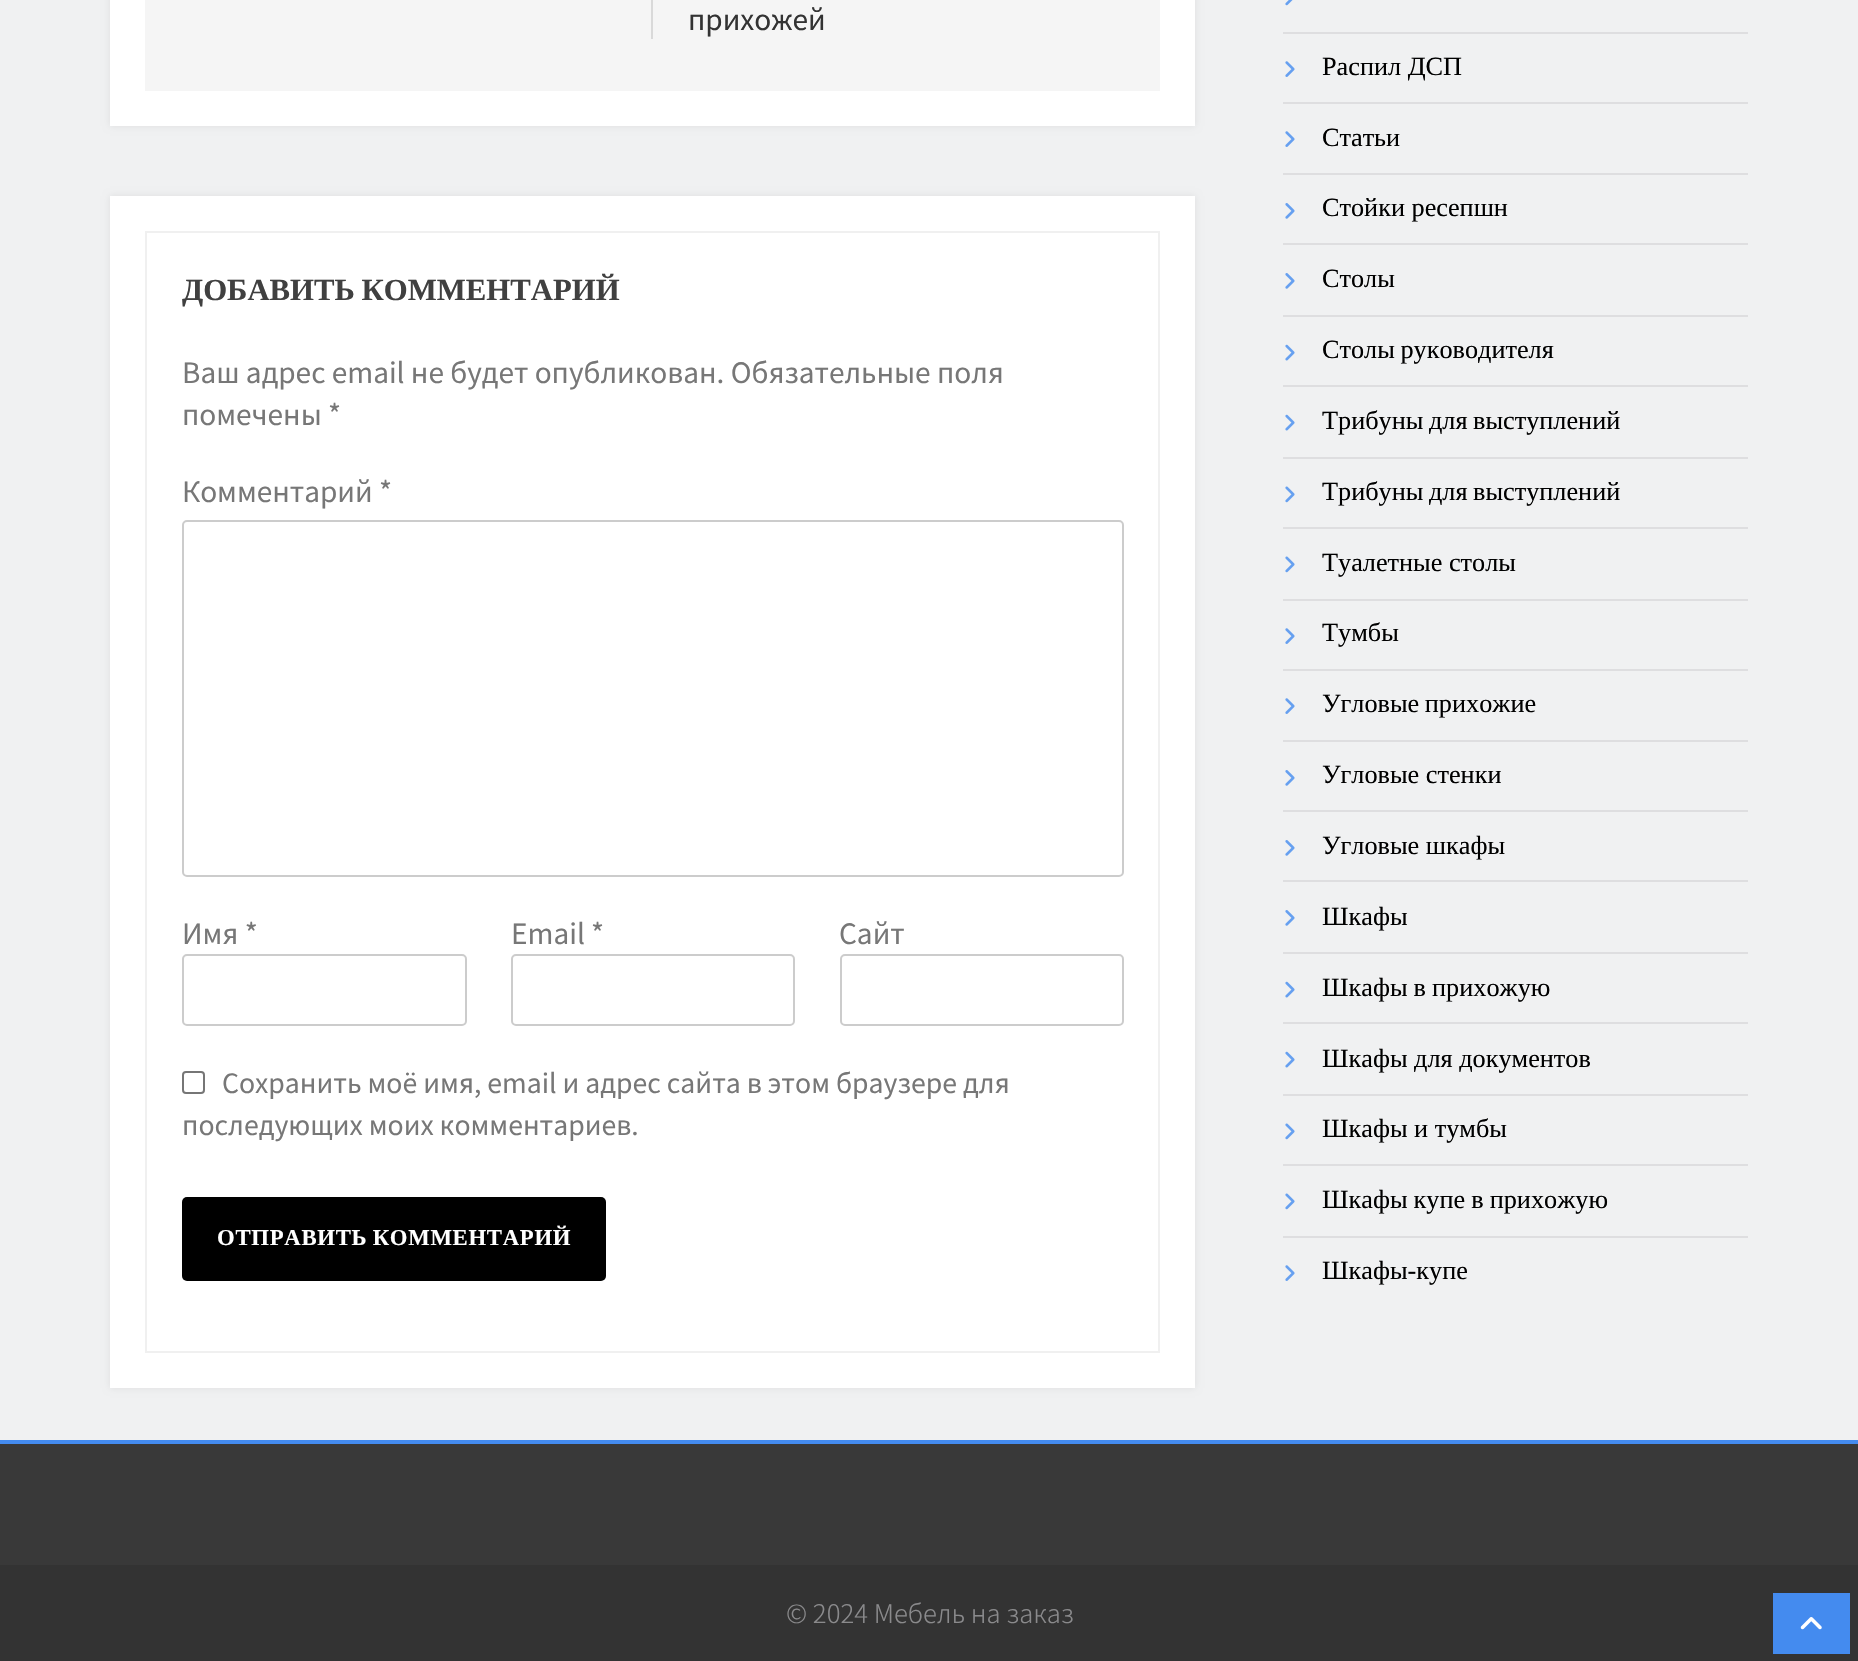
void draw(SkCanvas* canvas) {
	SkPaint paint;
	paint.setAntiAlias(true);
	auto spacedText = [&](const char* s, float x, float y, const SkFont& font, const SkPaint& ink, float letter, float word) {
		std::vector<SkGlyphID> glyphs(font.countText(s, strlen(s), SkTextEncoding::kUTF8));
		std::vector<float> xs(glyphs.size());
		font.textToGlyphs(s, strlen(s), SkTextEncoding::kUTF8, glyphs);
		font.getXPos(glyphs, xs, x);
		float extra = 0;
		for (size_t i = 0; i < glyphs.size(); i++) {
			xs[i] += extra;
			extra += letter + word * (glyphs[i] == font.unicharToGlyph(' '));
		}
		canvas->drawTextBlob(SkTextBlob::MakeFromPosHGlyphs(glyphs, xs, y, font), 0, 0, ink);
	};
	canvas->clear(0xfff0f1f2);
	paint.setColor(0x14000000);
	paint.setMaskFilter(SkMaskFilter::MakeBlur(kNormal_SkBlurStyle, 3.5));
	canvas->drawRect(SkRect::MakeXYWH(110, -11, 1085, 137), paint);
	paint.setMaskFilter(nullptr);
	paint.setColor(0xffffffff);
	canvas->drawRect(SkRect::MakeXYWH(110, 0, 1085, 126), paint);
	paint.setColor(0xfff5f5f5);
	canvas->drawRect(SkRect::MakeXYWH(145, 0, 1015, 91), paint);
	paint.setColor(0xffd9d9d9);
	canvas->drawRect(SkRect::MakeXYWH(651, 0, 2, 39), paint);
	SkFont f1(fontMgr->matchFamilyStyle("Noto Sans JP", SkFontStyle::Normal()), 28);
	f1.setSubpixel(true);
	paint.setColor(0xff333333);
	canvas->drawString("прихожей", 688, 30, f1, paint);
	paint.setColor(0x14000000);
	paint.setMaskFilter(SkMaskFilter::MakeBlur(kNormal_SkBlurStyle, 3.5));
	canvas->drawRect(SkRect::MakeXYWH(110, 196, 1085, 1192), paint);
	paint.setMaskFilter(nullptr);
	paint.setColor(0xffffffff);
	canvas->drawRect(SkRect::MakeXYWH(110, 196, 1085, 1192), paint);
	paint.setStroke(true);
	paint.setStrokeWidth(2);
	paint.setColor(0xfff0f0f0);
	canvas->drawRect(SkRect::MakeXYWH(146, 232, 1013, 1120), paint);
	SkFont f2(fontMgr->matchFamilyStyle("Liberation Serif", SkFontStyle::Bold()), 30.75);
	f2.setSubpixel(true);
	paint.setStroke(false);
	paint.setColor(0xff404040);
	spacedText("ДОБАВИТЬ КОММЕНТАРИЙ", 182, 300, f2, paint, 0, -1);
	paint.setColor(0xff777777);
	canvas->drawString("Ваш адрес email не будет опубликован. Обязательные поля", 182, 383, f1, paint);
	canvas->drawString("помечены *", 182, 425, f1, paint);
	canvas->drawString("Комментарий *", 182, 502, f1, paint);
	paint.setStroke(true);
	paint.setColor(0xffcccccc);
	canvas->drawRoundRect(SkRect::MakeXYWH(183, 521, 940, 355), 4, 4, paint);
	paint.setStroke(false);
	paint.setColor(0xff777777);
	canvas->drawString("Имя *", 182, 944, f1, paint);
	paint.setStroke(true);
	paint.setColor(0xffcccccc);
	canvas->drawRoundRect(SkRect::MakeXYWH(183, 955, 283, 70), 4, 4, paint);
	paint.setStroke(false);
	paint.setColor(0xff777777);
	canvas->drawString("Email *", 511, 944, f1, paint);
	paint.setStroke(true);
	paint.setColor(0xffcccccc);
	canvas->drawRoundRect(SkRect::MakeXYWH(512, 955, 282, 70), 4, 4, paint);
	paint.setStroke(false);
	paint.setColor(0xff777777);
	canvas->drawString("Сайт", 839, 944, f1, paint);
	paint.setStroke(true);
	paint.setColor(0xffcccccc);
	canvas->drawRoundRect(SkRect::MakeXYWH(841, 955, 282, 70), 4, 4, paint);
	paint.setColor(0xff767676);
	canvas->drawRoundRect(SkRect::MakeXYWH(183, 1072, 21, 21), 3, 3, paint);
	SkFont f3(fontMgr->matchFamilyStyle("Noto Sans JP", SkFontStyle::Normal()), 26.6);
	f3.setSubpixel(true);
	paint.setStroke(false);
	paint.setColor(0xff777777);
	canvas->drawString("Сохранить моё имя, email и адрес сайта в этом браузере для", 222, 1093, f3, paint);
	canvas->drawString("последующих моих комментариев.", 182, 1135, f3, paint);
	paint.setColor(0xff000000);
	canvas->drawRoundRect(SkRect::MakeXYWH(182, 1197, 424, 84), 5, 5, paint);
	SkFont f4(fontMgr->matchFamilyStyle("Liberation Serif", SkFontStyle::Bold()), 22.75);
	f4.setSubpixel(true);
	paint.setColor(0xffffffff);
	spacedText("ОТПРАВИТЬ КОММЕНТАРИЙ", 217, 1245, f4, paint, 0.7, -1);
	paint.setColor(0xffdedee0);
	canvas->drawRect(SkRect::MakeXYWH(1283, 32, 465, 2), paint);
	canvas->drawImageRect(SkImages::DeferredFromEncodedData(SkData::MakeFromFileName("img1.png")), SkRect::MakeXYWH(1285, 0, 8, 6), SkSamplingOptions());
	canvas->drawRect(SkRect::MakeXYWH(1283, 102, 465, 2), paint);
	canvas->drawImageRect(SkImages::DeferredFromEncodedData(SkData::MakeFromFileName("img2.png")), SkRect::MakeXYWH(1285, 61, 10, 16), SkSamplingOptions());
	SkFont f5(fontMgr->matchFamilyStyle("Liberation Serif", SkFontStyle::Normal()), 26.25);
	f5.setSubpixel(true);
	paint.setColor(0xff000000);
	canvas->drawString("Распил ДСП", 1322, 75, f5, paint);
	paint.setColor(0xffdedee0);
	canvas->drawRect(SkRect::MakeXYWH(1283, 173, 465, 2), paint);
	canvas->drawImageRect(SkImages::DeferredFromEncodedData(SkData::MakeFromFileName("img2.png")), SkRect::MakeXYWH(1285, 131, 10, 16), SkSamplingOptions());
	paint.setColor(0xff000000);
	canvas->drawString("Статьи", 1322, 146, f5, paint);
	paint.setColor(0xffdedee0);
	canvas->drawRect(SkRect::MakeXYWH(1283, 243, 465, 2), paint);
	canvas->drawImageRect(SkImages::DeferredFromEncodedData(SkData::MakeFromFileName("img3.png")), SkRect::MakeXYWH(1285, 203, 10, 16), SkSamplingOptions());
	paint.setColor(0xff000000);
	canvas->drawString("Стойки ресепшн", 1322, 216, f5, paint);
	paint.setColor(0xffdedee0);
	canvas->drawRect(SkRect::MakeXYWH(1283, 315, 465, 2), paint);
	canvas->drawImageRect(SkImages::DeferredFromEncodedData(SkData::MakeFromFileName("img3.png")), SkRect::MakeXYWH(1285, 273, 10, 16), SkSamplingOptions());
	paint.setColor(0xff000000);
	canvas->drawString("Столы", 1322, 287, f5, paint);
	paint.setColor(0xffdedee0);
	canvas->drawRect(SkRect::MakeXYWH(1283, 385, 465, 2), paint);
	canvas->drawImageRect(SkImages::DeferredFromEncodedData(SkData::MakeFromFileName("img4.png")), SkRect::MakeXYWH(1285, 344, 10, 17), SkSamplingOptions());
	paint.setColor(0xff000000);
	spacedText("Столы руководителя", 1322, 358, f5, paint, 0, -1);
	paint.setColor(0xffdedee0);
	canvas->drawRect(SkRect::MakeXYWH(1283, 457, 465, 2), paint);
	canvas->drawImageRect(SkImages::DeferredFromEncodedData(SkData::MakeFromFileName("img4.png")), SkRect::MakeXYWH(1285, 414, 10, 17), SkSamplingOptions());
	paint.setColor(0xff000000);
	spacedText("Трибуны для выступлений", 1322, 429, f5, paint, 0, -1);
	paint.setColor(0xffdedee0);
	canvas->drawRect(SkRect::MakeXYWH(1283, 527, 465, 2), paint);
	canvas->drawImageRect(SkImages::DeferredFromEncodedData(SkData::MakeFromFileName("img5.png")), SkRect::MakeXYWH(1285, 486, 10, 17), SkSamplingOptions());
	paint.setColor(0xff000000);
	spacedText("Трибуны для выступлений", 1322, 500, f5, paint, 0, -1);
	paint.setColor(0xffdedee0);
	canvas->drawRect(SkRect::MakeXYWH(1283, 599, 465, 2), paint);
	canvas->drawImageRect(SkImages::DeferredFromEncodedData(SkData::MakeFromFileName("img5.png")), SkRect::MakeXYWH(1285, 556, 10, 17), SkSamplingOptions());
	paint.setColor(0xff000000);
	canvas->drawString("Туалетные столы", 1322, 571, f5, paint);
	paint.setColor(0xffdedee0);
	canvas->drawRect(SkRect::MakeXYWH(1283, 669, 465, 2), paint);
	canvas->drawImageRect(SkImages::DeferredFromEncodedData(SkData::MakeFromFileName("img2.png")), SkRect::MakeXYWH(1285, 628, 10, 16), SkSamplingOptions());
	paint.setColor(0xff000000);
	canvas->drawString("Тумбы", 1322, 641, f5, paint);
	paint.setColor(0xffdedee0);
	canvas->drawRect(SkRect::MakeXYWH(1283, 740, 465, 2), paint);
	canvas->drawImageRect(SkImages::DeferredFromEncodedData(SkData::MakeFromFileName("img2.png")), SkRect::MakeXYWH(1285, 698, 10, 16), SkSamplingOptions());
	paint.setColor(0xff000000);
	spacedText("Угловые прихожие", 1322, 712, f5, paint, 0, -1);
	paint.setColor(0xffdedee0);
	canvas->drawRect(SkRect::MakeXYWH(1283, 810, 465, 2), paint);
	canvas->drawImageRect(SkImages::DeferredFromEncodedData(SkData::MakeFromFileName("img3.png")), SkRect::MakeXYWH(1285, 770, 10, 16), SkSamplingOptions());
	paint.setColor(0xff000000);
	canvas->drawString("Угловые стенки", 1322, 783, f5, paint);
	paint.setColor(0xffdedee0);
	canvas->drawRect(SkRect::MakeXYWH(1283, 880, 465, 2), paint);
	canvas->drawImageRect(SkImages::DeferredFromEncodedData(SkData::MakeFromFileName("img3.png")), SkRect::MakeXYWH(1285, 840, 10, 16), SkSamplingOptions());
	paint.setColor(0xff000000);
	canvas->drawString("Угловые шкафы", 1322, 854, f5, paint);
	paint.setColor(0xffdedee0);
	canvas->drawRect(SkRect::MakeXYWH(1283, 952, 465, 2), paint);
	canvas->drawImageRect(SkImages::DeferredFromEncodedData(SkData::MakeFromFileName("img3.png")), SkRect::MakeXYWH(1285, 910, 10, 16), SkSamplingOptions());
	paint.setColor(0xff000000);
	canvas->drawString("Шкафы", 1322, 925, f5, paint);
	paint.setColor(0xffdedee0);
	canvas->drawRect(SkRect::MakeXYWH(1283, 1022, 465, 2), paint);
	canvas->drawImageRect(SkImages::DeferredFromEncodedData(SkData::MakeFromFileName("img4.png")), SkRect::MakeXYWH(1285, 981, 10, 17), SkSamplingOptions());
	paint.setColor(0xff000000);
	spacedText("Шкафы в прихожую", 1322, 996, f5, paint, 0, -0.5);
	paint.setColor(0xffdedee0);
	canvas->drawRect(SkRect::MakeXYWH(1283, 1094, 465, 2), paint);
	canvas->drawImageRect(SkImages::DeferredFromEncodedData(SkData::MakeFromFileName("img4.png")), SkRect::MakeXYWH(1285, 1051, 10, 17), SkSamplingOptions());
	paint.setColor(0xff000000);
	canvas->drawString("Шкафы для документов", 1322, 1067, f5, paint);
	paint.setColor(0xffdedee0);
	canvas->drawRect(SkRect::MakeXYWH(1283, 1164, 465, 2), paint);
	canvas->drawImageRect(SkImages::DeferredFromEncodedData(SkData::MakeFromFileName("img5.png")), SkRect::MakeXYWH(1285, 1123, 10, 17), SkSamplingOptions());
	paint.setColor(0xff000000);
	canvas->drawString("Шкафы и тумбы", 1322, 1137, f5, paint);
	paint.setColor(0xffdedee0);
	canvas->drawRect(SkRect::MakeXYWH(1283, 1236, 465, 2), paint);
	canvas->drawImageRect(SkImages::DeferredFromEncodedData(SkData::MakeFromFileName("img5.png")), SkRect::MakeXYWH(1285, 1193, 10, 17), SkSamplingOptions());
	paint.setColor(0xff000000);
	spacedText("Шкафы купе в прихожую", 1322, 1208, f5, paint, 0, -0.5);
	canvas->drawImageRect(SkImages::DeferredFromEncodedData(SkData::MakeFromFileName("img2.png")), SkRect::MakeXYWH(1285, 1265, 10, 16), SkSamplingOptions());
	canvas->drawString("Шкафы-купе", 1322, 1279, f5, paint);
	paint.setColor(0xff448bef);
	canvas->drawRect(SkRect::MakeXYWH(0, 1440, 1858, 4), paint);
	paint.setColor(0xff393939);
	canvas->drawRect(SkRect::MakeXYWH(0, 1444, 1858, 121), paint);
	paint.setColor(0xff333333);
	canvas->drawRect(SkRect::MakeXYWH(0, 1565, 1858, 96), paint);
	SkFont f6(fontMgr->matchFamilyStyle("Noto Sans JP", SkFontStyle(300, SkFontStyle::kNormal_Width, SkFontStyle::kUpright_Slant)), 25.75);
	f6.setSubpixel(true);
	paint.setColor(0xff8a8a8c);
	canvas->drawString("© 2024 Мебель на заказ", 786, 1623, f6, paint);
	paint.setColor(0xff448bef);
	canvas->drawRect(SkRect::MakeXYWH(1773, 1593, 77, 61), paint);
	canvas->drawImageRect(SkImages::DeferredFromEncodedData(SkData::MakeFromFileName("img6.png")), SkRect::MakeXYWH(1800, 1617, 22, 13), SkSamplingOptions());
}
